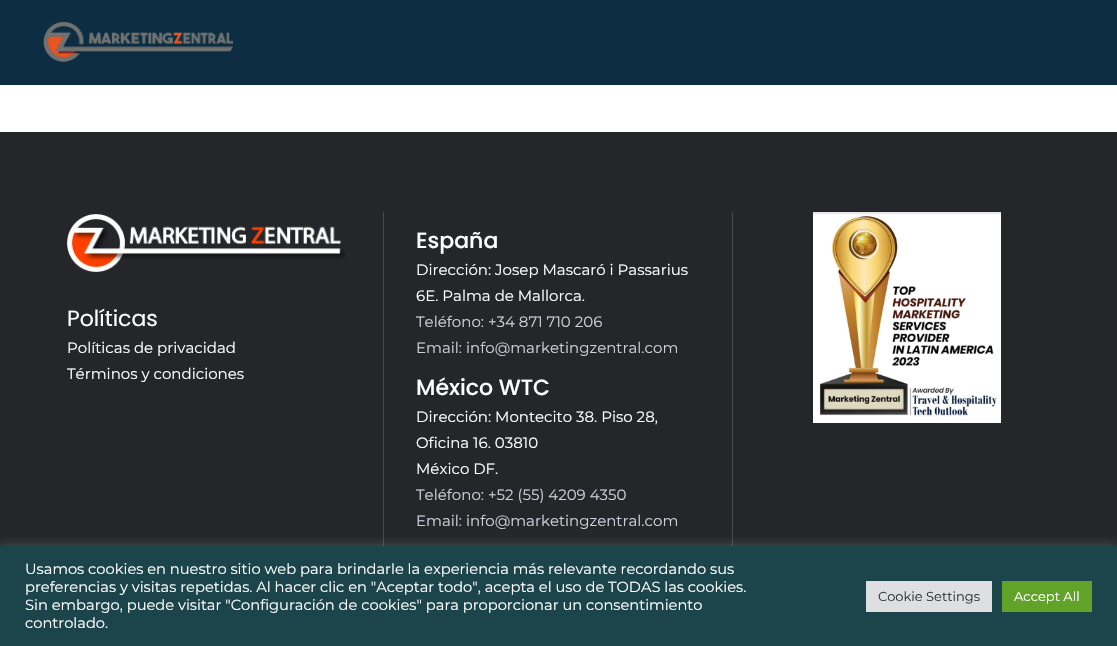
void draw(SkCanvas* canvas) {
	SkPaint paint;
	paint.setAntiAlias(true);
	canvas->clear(0xffffffff);
	paint.setColor(0xff0d2e42);
	canvas->drawRect(SkRect::MakeXYWH(0, 0, 1117, 85), paint);
	canvas->drawImageRect(SkImages::DeferredFromEncodedData(SkData::MakeFromFileName("img1.png")), SkRect::MakeXYWH(43, 22, 190, 41), SkSamplingOptions());
	paint.setColor(0xff24262a);
	canvas->drawRect(SkRect::MakeXYWH(0, 132, 1117, 414), paint);
	paint.setColor(0xff454951);
	canvas->drawRect(SkRect::MakeXYWH(383, 212, 1, 334), paint);
	canvas->drawImageRect(SkImages::DeferredFromEncodedData(SkData::MakeFromFileName("img2.png")), SkRect::MakeXYWH(67, 214, 279, 58), SkSamplingOptions());
	SkFont f1(fontMgr->matchFamilyStyle("Poppins", SkFontStyle::Normal()), 22);
	f1.setSubpixel(true);
	paint.setColor(0xffffffff);
	canvas->drawString("Políticas", 67, 326, f1, paint);
	SkFont f2(fontMgr->matchFamilyStyle("Montserrat", SkFontStyle::Normal()), 15);
	f2.setSubpixel(true);
	canvas->drawString("Políticas de privacidad", 67, 353, f2, paint);
	canvas->drawString("Términos y condiciones", 67, 379, f2, paint);
	paint.setColor(0xff454951);
	canvas->drawRect(SkRect::MakeXYWH(732, 212, 1, 334), paint);
	SkFont f3(fontMgr->matchFamilyStyle("Poppins", SkFontStyle(500, SkFontStyle::kNormal_Width, SkFontStyle::kUpright_Slant)), 22);
	f3.setSubpixel(true);
	paint.setColor(0xffffffff);
	canvas->drawString("España", 416, 248, f3, paint);
	canvas->drawString("Dirección: Josep Mascaró i Passarius", 416, 275, f2, paint);
	canvas->drawString("6E. Palma de Mallorca.", 416, 301, f2, paint);
	paint.setColor(0xffccd0d9);
	canvas->drawString("Teléfono: +34 871 710 206", 416, 327, f2, paint);
	canvas->drawString("Email: info@marketingzentral.com", 416, 353, f2, paint);
	paint.setColor(0xffffffff);
	canvas->drawString("México WTC", 416, 395, f3, paint);
	canvas->drawString("Dirección: Montecito 38. Piso 28,", 416, 422, f2, paint);
	canvas->drawString("Oficina 16. 03810", 416, 448, f2, paint);
	canvas->drawString("México DF.", 416, 474, f2, paint);
	paint.setColor(0xffccd0d9);
	canvas->drawString("Teléfono: +52 (55) 4209 4350", 416, 500, f2, paint);
	canvas->drawString("Email: info@marketingzentral.com", 416, 526, f2, paint);
	canvas->drawImageRect(SkImages::DeferredFromEncodedData(SkData::MakeFromFileName("img3.png")), SkRect::MakeXYWH(813, 212, 188, 211), SkSamplingOptions());
	paint.setColor(0x4dacabab);
	paint.setMaskFilter(SkMaskFilter::MakeBlur(kNormal_SkBlurStyle, 5));
	canvas->drawRect(SkRect::MakeXYWH(0, 545, 1117, 100), paint);
	paint.setMaskFilter(nullptr);
	paint.setColor(0xff1c454b);
	canvas->drawRect(SkRect::MakeXYWH(0, 546, 1117, 100), paint);
	SkFont f4(fontMgr->matchFamilyStyle("Montserrat", SkFontStyle::Normal()), 14.65);
	f4.setSubpixel(true);
	paint.setColor(0xffffffff);
	canvas->drawString("Usamos cookies en nuestro sitio web para brindarle la experiencia más relevante recordando sus", 25, 574, f4, paint);
	canvas->drawString("preferencias y visitas repetidas. Al hacer clic en \"Aceptar todo\", acepta el uso de TODAS las cookies.", 25, 592, f4, paint);
	canvas->drawString("Sin embargo, puede visitar \"Configuración de cookies\" para proporcionar un consentimiento", 25, 610, f4, paint);
	canvas->drawString("controlado.", 25, 628, f4, paint);
	paint.setColor(0xffdedfe0);
	canvas->drawRect(SkRect::MakeXYWH(866, 581, 126, 31), paint);
	SkFont f5(fontMgr->matchFamilyStyle("Montserrat", SkFontStyle::Normal()), 13);
	f5.setSubpixel(true);
	paint.setColor(0xff333333);
	canvas->drawString("Cookie Settings", 878, 601, f5, paint);
	paint.setColor(0xff61a229);
	canvas->drawRect(SkRect::MakeXYWH(1002, 581, 90, 31), paint);
	paint.setColor(0xffffffff);
	canvas->drawString("Accept All", 1014, 601, f5, paint);
}
